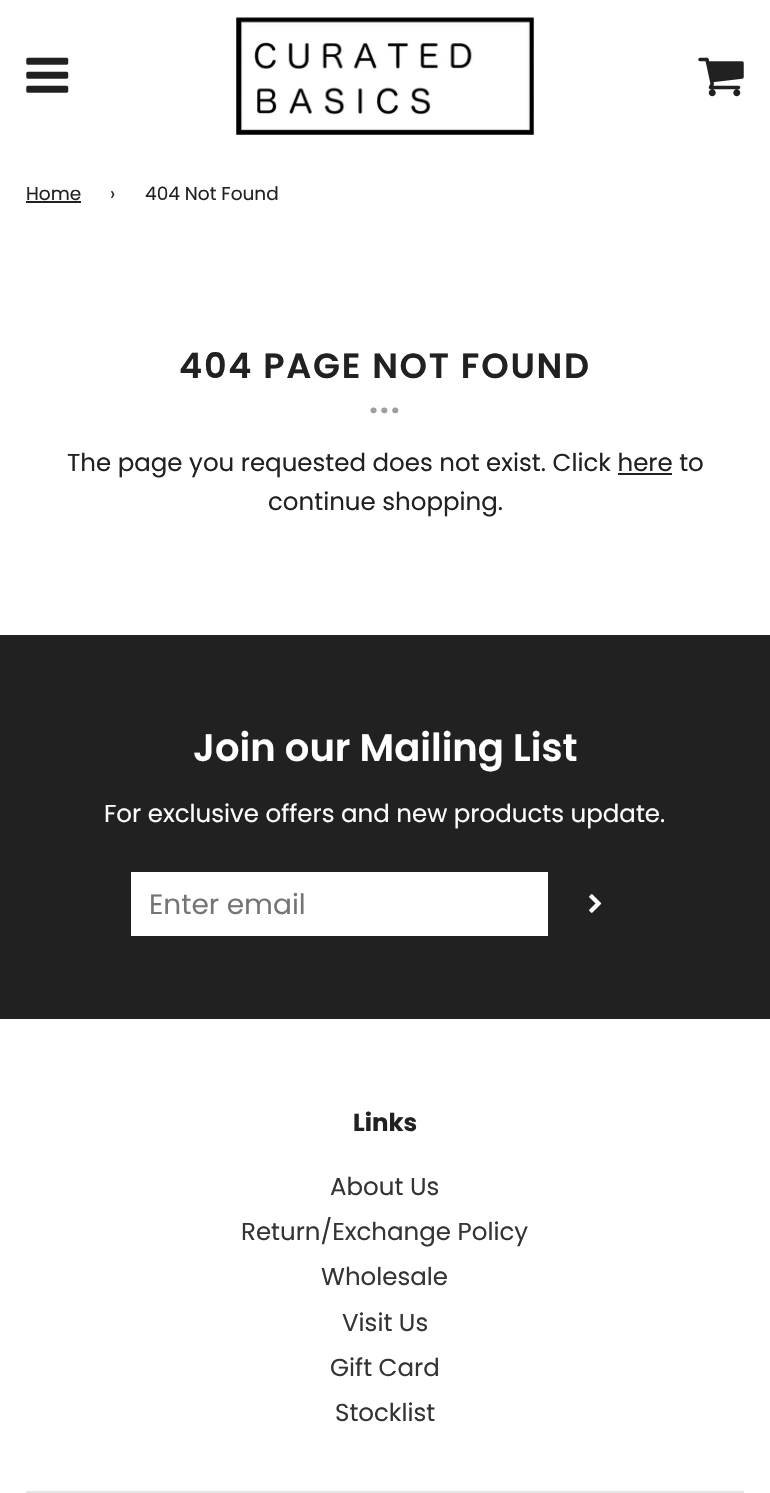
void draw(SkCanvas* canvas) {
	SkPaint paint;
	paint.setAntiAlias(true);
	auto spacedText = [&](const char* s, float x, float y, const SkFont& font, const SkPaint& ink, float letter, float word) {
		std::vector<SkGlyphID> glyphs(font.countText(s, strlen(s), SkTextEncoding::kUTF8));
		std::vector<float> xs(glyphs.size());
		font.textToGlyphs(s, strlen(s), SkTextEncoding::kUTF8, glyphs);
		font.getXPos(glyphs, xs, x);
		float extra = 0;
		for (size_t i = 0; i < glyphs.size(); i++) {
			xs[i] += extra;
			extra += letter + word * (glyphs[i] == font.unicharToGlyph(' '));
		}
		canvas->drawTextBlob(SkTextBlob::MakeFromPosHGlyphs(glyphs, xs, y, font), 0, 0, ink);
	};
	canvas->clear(0xffffffff);
	canvas->drawImageRect(SkImages::DeferredFromEncodedData(SkData::MakeFromFileName("img1.png")), SkRect::MakeXYWH(26, 57, 43, 36), SkSamplingOptions());
	canvas->drawImageRect(SkImages::DeferredFromEncodedData(SkData::MakeFromFileName("img2.png")), SkRect::MakeXYWH(236, 17, 298, 118), SkSamplingOptions());
	canvas->drawImageRect(SkImages::DeferredFromEncodedData(SkData::MakeFromFileName("img3.png")), SkRect::MakeXYWH(698, 57, 46, 40), SkSamplingOptions());
	SkFont f1(fontMgr->matchFamilyStyle("Poppins", SkFontStyle::Normal()), 18.5);
	f1.setSubpixel(true);
	paint.setColor(0xff212121);
	canvas->drawString("Home", 26, 200, f1, paint);
	canvas->drawRect(SkRect::MakeXYWH(26, 201, 55, 2), paint);
	canvas->drawString("›", 110, 200, f1, paint);
	canvas->drawString("404 Not Found", 145, 200, f1, paint);
	SkFont f2(fontMgr->matchFamilyStyle("Poppins", SkFontStyle(600, SkFontStyle::kNormal_Width, SkFontStyle::kUpright_Slant)), 35);
	f2.setSubpixel(true);
	spacedText("404 PAGE NOT FOUND", 179, 378, f2, paint, 1.75, 0);
	paint.setColor(0xff9e9e9e);
	spacedText("...", 369, 413, f2, paint, 1.75, 0);
	SkFont f3(fontMgr->matchFamilyStyle("Poppins", SkFontStyle::Normal()), 24.5);
	f3.setSubpixel(true);
	paint.setColor(0xff212121);
	canvas->drawString("The page you requested does not exist. Click here to", 67, 471, f3, paint);
	canvas->drawRect(SkRect::MakeXYWH(618, 473, 54, 2), paint);
	canvas->drawString("continue shopping.", 268, 510, f3, paint);
	canvas->drawRect(SkRect::MakeXYWH(0, 635, 770, 384), paint);
	SkFont f4(fontMgr->matchFamilyStyle("Poppins", SkFontStyle(600, SkFontStyle::kNormal_Width, SkFontStyle::kUpright_Slant)), 38.5);
	f4.setSubpixel(true);
	paint.setColor(0xffffffff);
	canvas->drawString("Join our Mailing List", 193, 761, f4, paint);
	canvas->drawString("For exclusive offers and new products update.", 104, 822, f3, paint);
	canvas->drawRect(SkRect::MakeXYWH(131, 872, 417, 64), paint);
	SkFont f5(fontMgr->matchFamilyStyle("Poppins", SkFontStyle::Normal()), 28);
	f5.setSubpixel(true);
	paint.setColor(0xff757575);
	canvas->drawString("Enter email", 149, 914, f5, paint);
	canvas->drawImageRect(SkImages::DeferredFromEncodedData(SkData::MakeFromFileName("img4.png")), SkRect::MakeXYWH(589, 894, 13, 19), SkSamplingOptions());
	SkFont f6(fontMgr->matchFamilyStyle("Poppins", SkFontStyle::Bold()), 24.5);
	f6.setSubpixel(true);
	paint.setColor(0xff212121);
	canvas->drawString("Links", 353, 1131, f6, paint);
	paint.setColor(0xff343434);
	canvas->drawString("About Us", 330, 1195, f3, paint);
	canvas->drawString("Return/Exchange Policy", 241, 1240, f3, paint);
	canvas->drawString("Wholesale", 321, 1285, f3, paint);
	canvas->drawString("Visit Us", 342, 1331, f3, paint);
	canvas->drawString("Gift Card", 330, 1376, f3, paint);
	canvas->drawString("Stocklist", 335, 1421, f3, paint);
	paint.setColor(0xffe6e6e6);
	canvas->drawRect(SkRect::MakeXYWH(26, 1491, 718, 2), paint);
}
